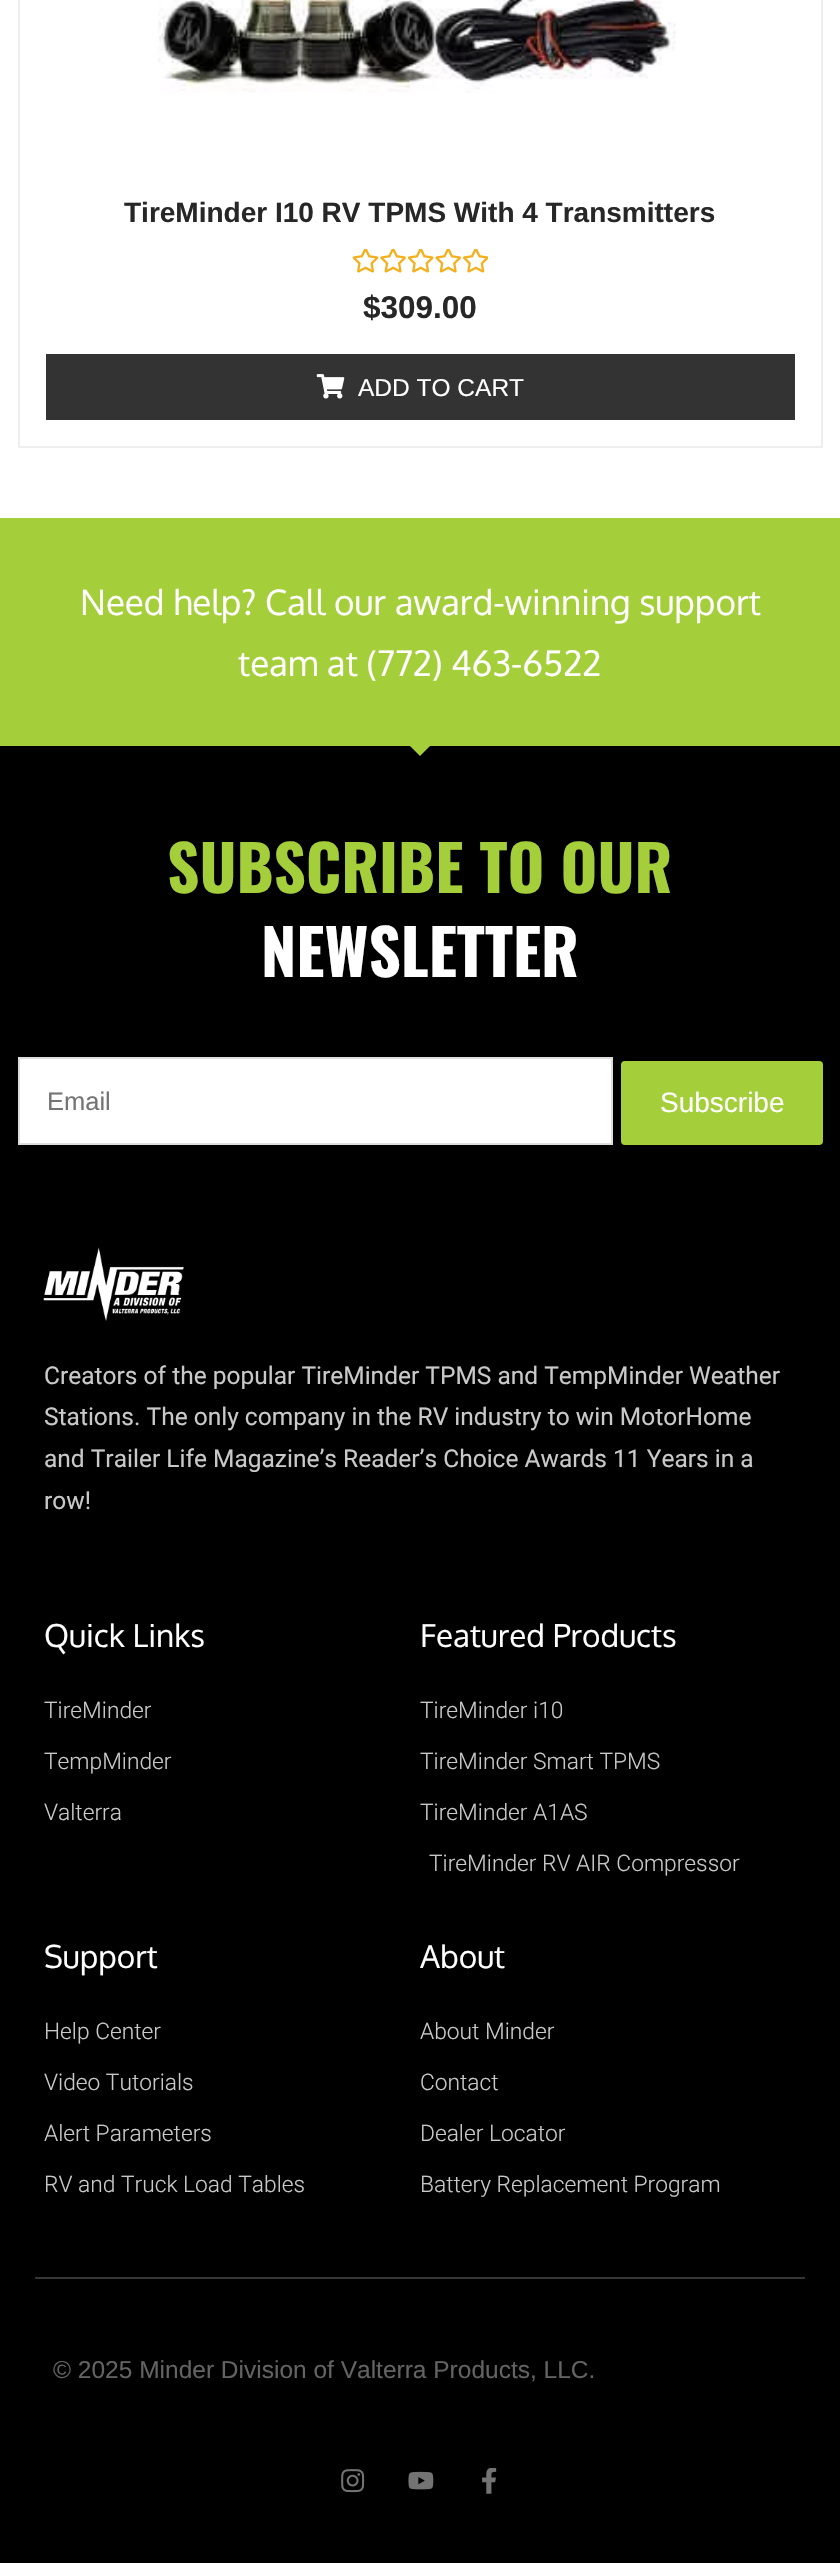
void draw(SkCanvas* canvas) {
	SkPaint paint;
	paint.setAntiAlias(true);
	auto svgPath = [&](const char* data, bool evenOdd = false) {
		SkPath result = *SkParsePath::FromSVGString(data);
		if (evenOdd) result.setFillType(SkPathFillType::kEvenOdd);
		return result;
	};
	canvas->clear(0xffffffff);
	paint.setStroke(true);
	paint.setStrokeWidth(2);
	paint.setColor(0xffeeeeee);
	canvas->drawRect(SkRect::MakeXYWH(19, -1, 803, 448), paint);
	canvas->drawImageRect(SkImages::DeferredFromEncodedData(SkData::MakeFromFileName("img1.png")), SkRect::MakeXYWH(158, 0, 518, 93), SkSamplingOptions());
	SkFont f1(fontMgr->matchFamilyStyle("Liberation Sans", SkFontStyle::Bold()), 28);
	f1.setSubpixel(true);
	paint.setStroke(false);
	paint.setColor(0xff272727);
	canvas->drawString("TireMinder I10 RV TPMS With 4 Transmitters", 124, 222, f1, paint);
	canvas->drawImageRect(SkImages::DeferredFromEncodedData(SkData::MakeFromFileName("img2.png")), SkRect::MakeXYWH(352, 249, 136, 24), SkSamplingOptions());
	SkFont f2(fontMgr->matchFamilyStyle("Liberation Sans", SkFontStyle::Bold()), 31.5);
	f2.setSubpixel(true);
	canvas->drawString("$309.00", 363, 318, f2, paint);
	paint.setColor(0xff333333);
	canvas->drawRect(SkRect::MakeXYWH(46, 354, 749, 66), paint);
	canvas->drawImageRect(SkImages::DeferredFromEncodedData(SkData::MakeFromFileName("img3.png")), SkRect::MakeXYWH(316, 374, 29, 25), SkSamplingOptions());
	SkFont f3(fontMgr->matchFamilyStyle("Liberation Sans", SkFontStyle::Normal()), 24.5);
	f3.setSubpixel(true);
	paint.setColor(0xffffffff);
	canvas->drawString("ADD TO CART", 358, 396, f3, paint);
	paint.setColor(0xffa4ce3a);
	canvas->drawRect(SkRect::MakeXYWH(0, 518, 840, 228), paint);
	SkFont f4(fontMgr->matchFamilyStyle("Oxygen", SkFontStyle::Normal()), 35);
	f4.setSubpixel(true);
	paint.setColor(0xffffffff);
	canvas->drawString("Need help? Call our award-winning support", 80, 615, f4, paint);
	canvas->drawString("team at (772) 463-6522", 238, 676, f4, paint);
	paint.setColor(0xff000000);
	canvas->drawRect(SkRect::MakeXYWH(0, 746, 840, 1817), paint);
	paint.setColor(0xffa4ce3a);
	canvas->drawPath(svgPath("M420 756L408 744H432Z"), paint);
	SkFont f5(fontMgr->matchFamilyStyle("Oswald", SkFontStyle::Bold()), 63);
	f5.setSubpixel(true);
	canvas->drawString("SUBSCRIBE TO OUR", 167, 893, f5, paint);
	paint.setColor(0xffffffff);
	canvas->drawString("NEWSLETTER", 261, 977, f5, paint);
	canvas->drawRect(SkRect::MakeXYWH(19, 1058, 593, 86), paint);
	paint.setStroke(true);
	paint.setColor(0xffdddddd);
	canvas->drawRect(SkRect::MakeXYWH(19, 1058, 593, 86), paint);
	SkFont f6(fontMgr->matchFamilyStyle("Liberation Sans", SkFontStyle::Normal()), 25.5);
	f6.setSubpixel(true);
	paint.setStroke(false);
	paint.setColor(0xff757575);
	canvas->drawString("Email", 47, 1110, f6, paint);
	paint.setColor(0xffa4ce3a);
	canvas->drawRoundRect(SkRect::MakeXYWH(621, 1061, 202, 84), 4, 4, paint);
	SkFont f7(fontMgr->matchFamilyStyle("Liberation Sans", SkFontStyle::Normal()), 28);
	f7.setSubpixel(true);
	paint.setColor(0xffffffff);
	canvas->drawString("Subscribe", 660, 1112, f7, paint);
	canvas->drawImageRect(SkImages::DeferredFromEncodedData(SkData::MakeFromFileName("img4.png")), SkRect::MakeXYWH(43, 1247, 141, 74), SkSamplingOptions());
	SkFont f8(fontMgr->matchFamilyStyle("Roboto", SkFontStyle::Normal()), 24.5);
	f8.setSubpixel(true);
	paint.setColor(0xffc9c9c9);
	canvas->drawString("Creators of the popular TireMinder TPMS and TempMinder Weather", 44, 1384, f8, paint);
	canvas->drawString("Stations. The only company in the RV industry to win MotorHome", 44, 1425, f8, paint);
	canvas->drawString("and Trailer Life Magazine’s Reader’s Choice Awards 11 Years in a", 44, 1467, f8, paint);
	canvas->drawString("row!", 44, 1509, f8, paint);
	SkFont f9(fontMgr->matchFamilyStyle("Oxygen", SkFontStyle::Normal()), 31.5);
	f9.setSubpixel(true);
	paint.setColor(0xffffffff);
	canvas->drawString("Quick Links", 44, 1647, f9, paint);
	SkFont f10(fontMgr->matchFamilyStyle("Roboto", SkFontStyle(300, SkFontStyle::kNormal_Width, SkFontStyle::kUpright_Slant)), 22.75);
	f10.setSubpixel(true);
	paint.setColor(0xffc9c9c9);
	canvas->drawString("TireMinder", 44, 1718, f10, paint);
	canvas->drawString("TempMinder", 44, 1769, f10, paint);
	canvas->drawString("Valterra", 44, 1820, f10, paint);
	paint.setColor(0xffffffff);
	canvas->drawString("Featured Products", 420, 1647, f9, paint);
	paint.setColor(0xffc9c9c9);
	canvas->drawString("TireMinder i10", 420, 1718, f10, paint);
	canvas->drawString("TireMinder Smart TPMS", 420, 1769, f10, paint);
	canvas->drawString("TireMinder A1AS", 420, 1820, f10, paint);
	canvas->drawString("TireMinder RV AIR Compressor", 429, 1871, f10, paint);
	paint.setColor(0xffffffff);
	canvas->drawString("Support", 44, 1968, f9, paint);
	paint.setColor(0xffc9c9c9);
	canvas->drawString("Help Center", 44, 2039, f10, paint);
	canvas->drawString("Video Tutorials", 44, 2090, f10, paint);
	canvas->drawString("Alert Parameters", 44, 2141, f10, paint);
	canvas->drawString("RV and Truck Load Tables", 44, 2192, f10, paint);
	paint.setColor(0xffffffff);
	canvas->drawString("About", 420, 1968, f9, paint);
	paint.setColor(0xffc9c9c9);
	canvas->drawString("About Minder", 420, 2039, f10, paint);
	canvas->drawString("Contact", 420, 2090, f10, paint);
	canvas->drawString("Dealer Locator", 420, 2141, f10, paint);
	canvas->drawString("Battery Replacement Program", 420, 2192, f10, paint);
	paint.setColor(0xff363636);
	canvas->drawRect(SkRect::MakeXYWH(35, 2277, 770, 2), paint);
	paint.setColor(0xff636363);
	canvas->drawString("© 2025 Minder Division of Valterra Products, LLC.", 53, 2378, f3, paint);
	canvas->drawImageRect(SkImages::DeferredFromEncodedData(SkData::MakeFromFileName("img5.png")), SkRect::MakeXYWH(341, 2469, 24, 24), SkSamplingOptions());
	canvas->drawImageRect(SkImages::DeferredFromEncodedData(SkData::MakeFromFileName("img6.png")), SkRect::MakeXYWH(408, 2471, 26, 19), SkSamplingOptions());
	canvas->drawImageRect(SkImages::DeferredFromEncodedData(SkData::MakeFromFileName("img7.png")), SkRect::MakeXYWH(482, 2468, 15, 26), SkSamplingOptions());
}
